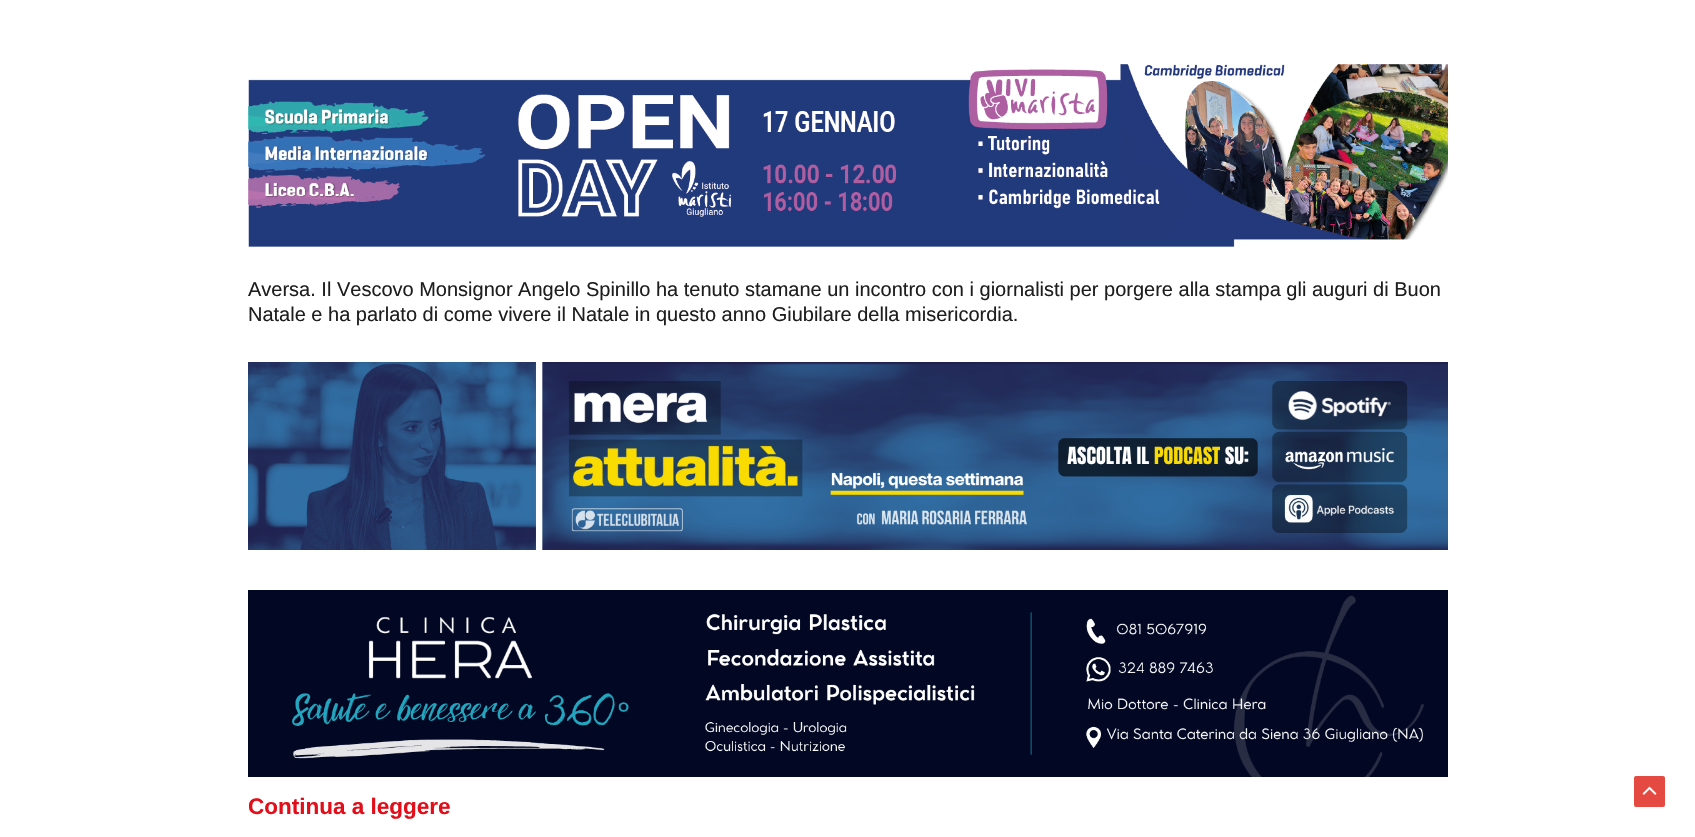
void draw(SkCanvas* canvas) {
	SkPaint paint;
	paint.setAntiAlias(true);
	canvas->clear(0xffffffff);
	canvas->drawImageRect(SkImages::DeferredFromEncodedData(SkData::MakeFromFileName("img1.png")), SkRect::MakeXYWH(248, 64, 1200, 183), SkSamplingOptions());
	SkFont f1(fontMgr->matchFamilyStyle("Liberation Sans", SkFontStyle::Normal()), 20);
	f1.setSubpixel(true);
	paint.setColor(0xff1e1e1e);
	canvas->drawString("Aversa. Il Vescovo Monsignor Angelo Spinillo ha tenuto stamane un incontro con i giornalisti per porgere alla stampa gli auguri di Buon", 248, 296, f1, paint);
	canvas->drawString("Natale e ha parlato di come vivere il Natale in questo anno Giubilare della misericordia.", 248, 321, f1, paint);
	canvas->drawImageRect(SkImages::DeferredFromEncodedData(SkData::MakeFromFileName("img2.png")), SkRect::MakeXYWH(248, 362, 1200, 188), SkSamplingOptions());
	canvas->drawImageRect(SkImages::DeferredFromEncodedData(SkData::MakeFromFileName("img3.png")), SkRect::MakeXYWH(248, 590, 1200, 187), SkSamplingOptions());
	SkFont f2(fontMgr->matchFamilyStyle("Liberation Sans", SkFontStyle::Bold()), 22.5);
	f2.setSubpixel(true);
	paint.setColor(0xffe20e19);
	canvas->drawString("Continua a leggere", 248, 814, f2, paint);
	paint.setColor(0xffe54a42);
	canvas->drawRoundRect(SkRect::MakeXYWH(1634, 776, 31, 31), 2, 2, paint);
	canvas->drawImageRect(SkImages::DeferredFromEncodedData(SkData::MakeFromFileName("img4.png")), SkRect::MakeXYWH(1642, 786, 15, 9), SkSamplingOptions());
}
